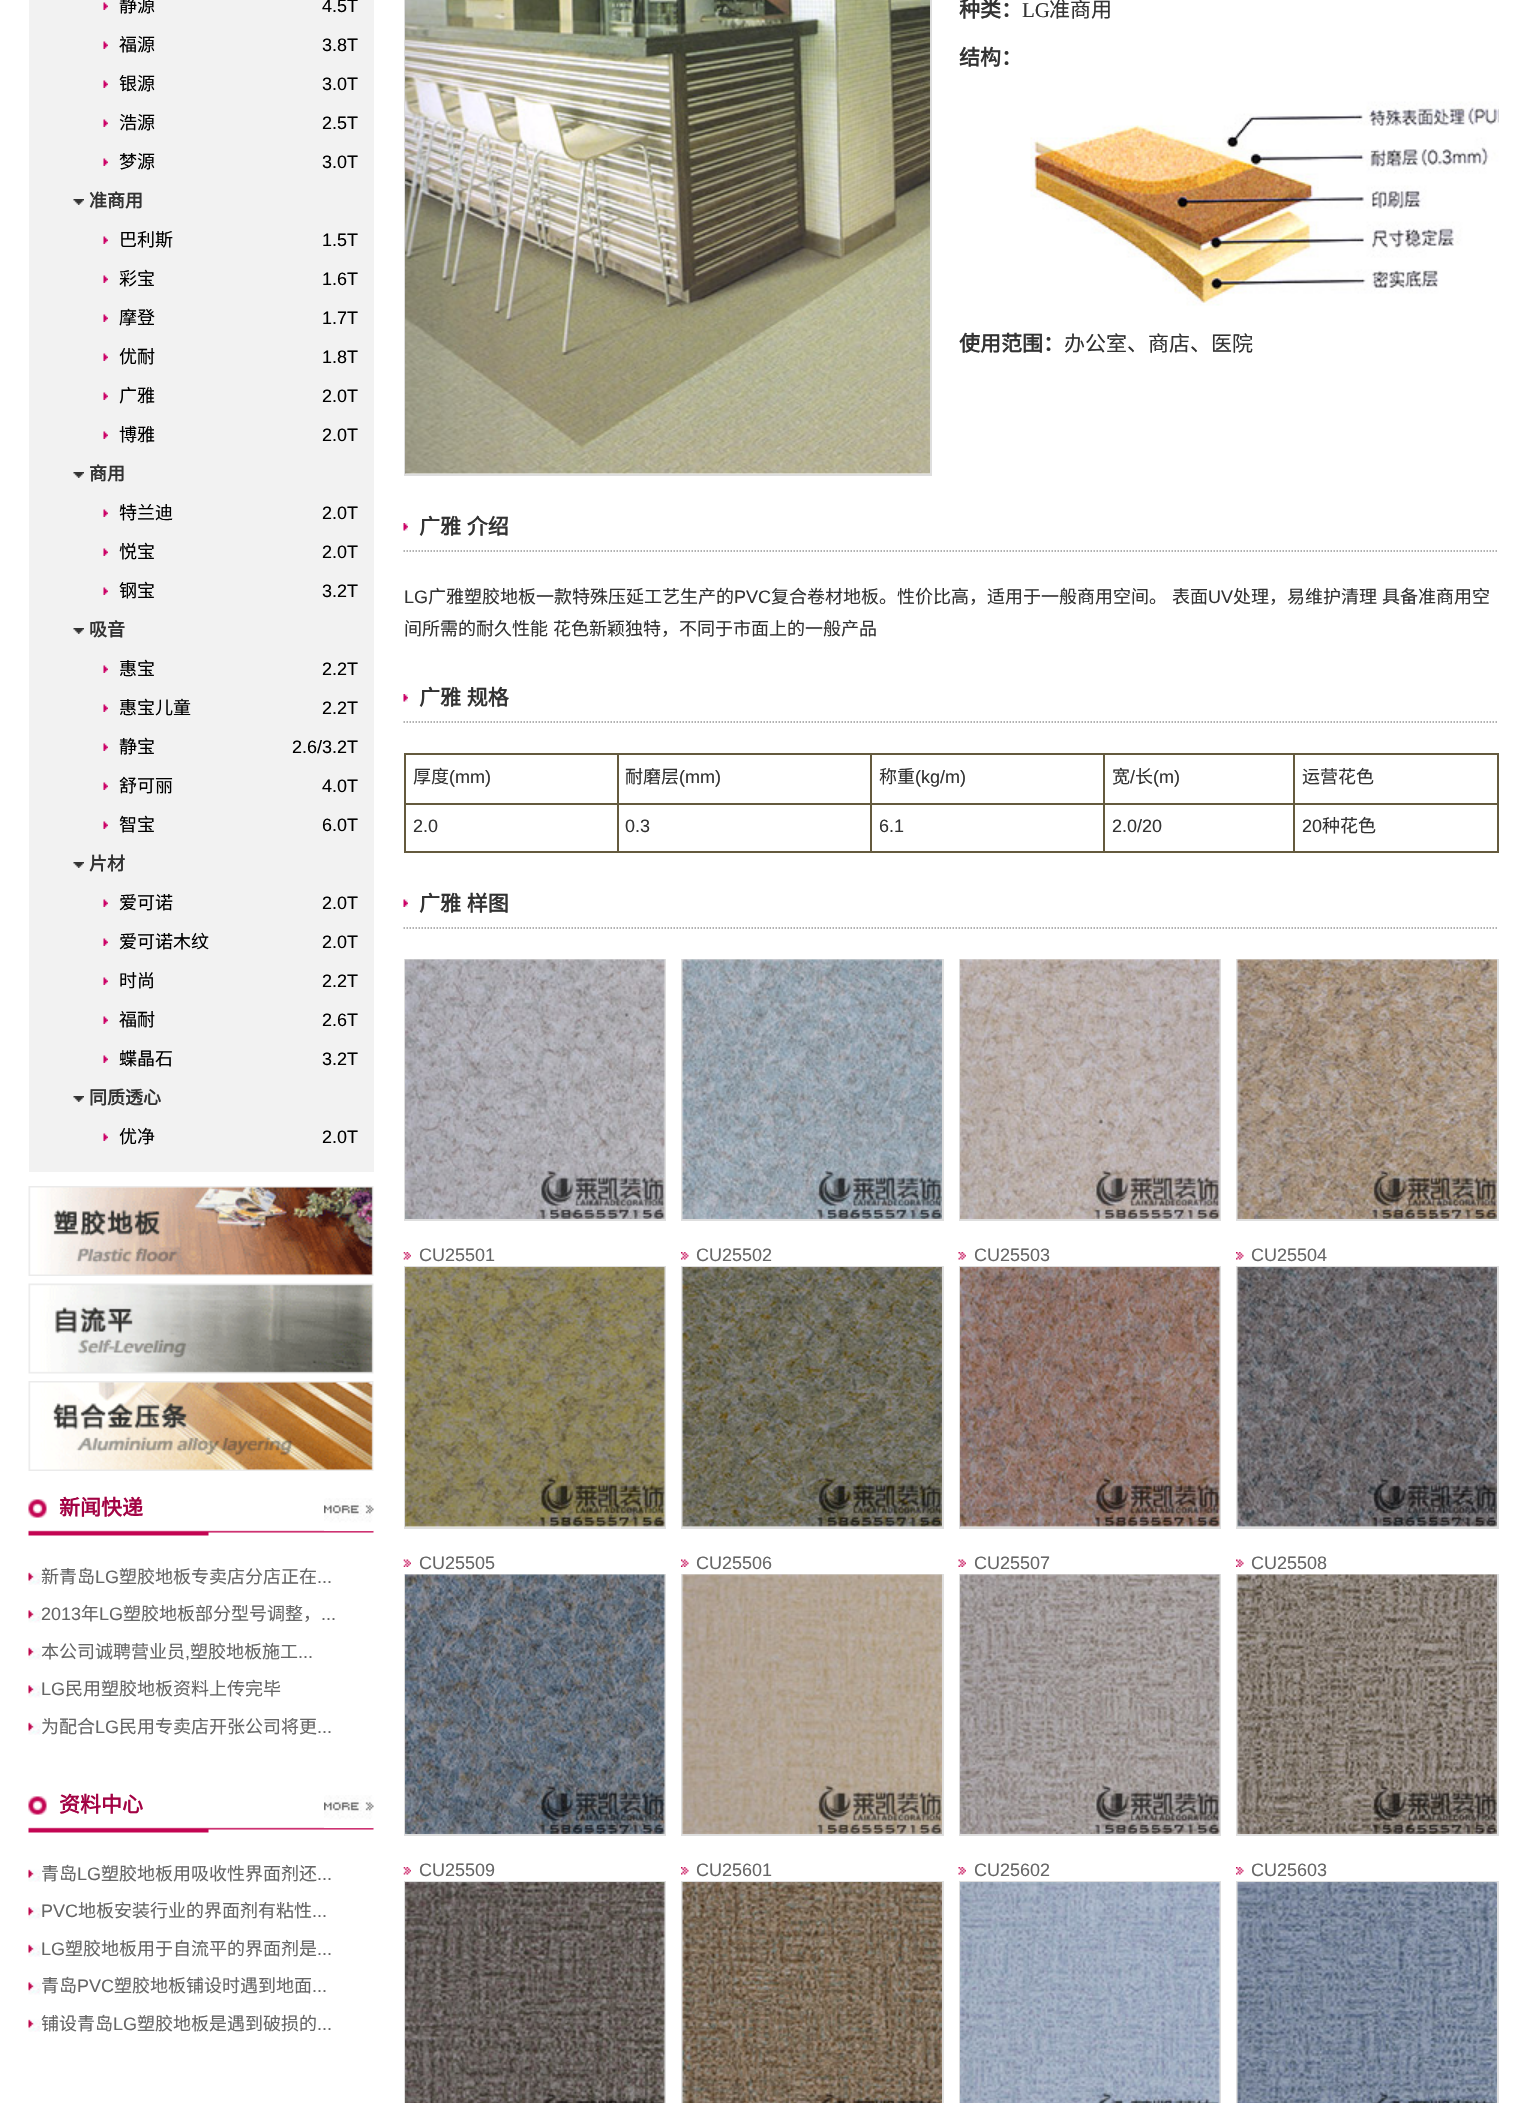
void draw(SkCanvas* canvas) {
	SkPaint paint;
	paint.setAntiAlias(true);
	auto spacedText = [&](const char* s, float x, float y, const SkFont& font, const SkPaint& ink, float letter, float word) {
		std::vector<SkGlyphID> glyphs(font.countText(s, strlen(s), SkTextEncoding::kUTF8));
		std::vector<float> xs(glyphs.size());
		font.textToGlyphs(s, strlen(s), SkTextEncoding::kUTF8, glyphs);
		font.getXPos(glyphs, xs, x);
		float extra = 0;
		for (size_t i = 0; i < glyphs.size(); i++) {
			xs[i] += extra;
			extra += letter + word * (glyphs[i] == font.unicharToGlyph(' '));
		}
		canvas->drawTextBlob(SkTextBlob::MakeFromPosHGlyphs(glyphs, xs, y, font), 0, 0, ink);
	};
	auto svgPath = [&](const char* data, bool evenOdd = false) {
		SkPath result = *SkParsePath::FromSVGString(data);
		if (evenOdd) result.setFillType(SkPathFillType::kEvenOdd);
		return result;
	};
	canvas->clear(0xffffffff);
	paint.setColor(0xfff2f2f2);
	canvas->drawRect(SkRect::MakeXYWH(29, 0, 345, 1172), paint);
	canvas->drawImageRect(SkImages::DeferredFromEncodedData(SkData::MakeFromFileName("img1.png")), SkRect::MakeXYWH(103, 2, 5, 8), SkSamplingOptions());
	SkFont f1(fontMgr->matchFamilyStyle("Noto Sans CJK SC", SkFontStyle::Normal()), 18);
	f1.setSubpixel(true);
	paint.setColor(0xff000000);
	canvas->drawString("静源", 119, 12, f1, paint);
	SkFont f2(fontMgr->matchFamilyStyle("Liberation Sans", SkFontStyle::Normal()), 18);
	f2.setSubpixel(true);
	canvas->drawString("4.5T", 322, 12, f2, paint);
	canvas->drawImageRect(SkImages::DeferredFromEncodedData(SkData::MakeFromFileName("img1.png")), SkRect::MakeXYWH(103, 41, 5, 8), SkSamplingOptions());
	canvas->drawString("福源", 119, 51, f1, paint);
	canvas->drawString("3.8T", 322, 51, f2, paint);
	canvas->drawImageRect(SkImages::DeferredFromEncodedData(SkData::MakeFromFileName("img1.png")), SkRect::MakeXYWH(103, 80, 5, 8), SkSamplingOptions());
	canvas->drawString("银源", 119, 90, f1, paint);
	canvas->drawString("3.0T", 322, 90, f2, paint);
	canvas->drawImageRect(SkImages::DeferredFromEncodedData(SkData::MakeFromFileName("img1.png")), SkRect::MakeXYWH(103, 119, 5, 8), SkSamplingOptions());
	canvas->drawString("浩源", 119, 129, f1, paint);
	canvas->drawString("2.5T", 322, 129, f2, paint);
	canvas->drawImageRect(SkImages::DeferredFromEncodedData(SkData::MakeFromFileName("img1.png")), SkRect::MakeXYWH(103, 158, 5, 8), SkSamplingOptions());
	canvas->drawString("梦源", 119, 168, f1, paint);
	canvas->drawString("3.0T", 322, 168, f2, paint);
	canvas->drawImageRect(SkImages::DeferredFromEncodedData(SkData::MakeFromFileName("img2.png")), SkRect::MakeXYWH(73, 199, 11, 6), SkSamplingOptions());
	SkFont f3(fontMgr->matchFamilyStyle("Noto Sans CJK SC", SkFontStyle::Bold()), 18);
	f3.setSubpixel(true);
	paint.setColor(0xff333333);
	canvas->drawString("准商用", 89, 207, f3, paint);
	canvas->drawImageRect(SkImages::DeferredFromEncodedData(SkData::MakeFromFileName("img1.png")), SkRect::MakeXYWH(103, 236, 5, 8), SkSamplingOptions());
	paint.setColor(0xff000000);
	canvas->drawString("巴利斯", 119, 246, f1, paint);
	canvas->drawString("1.5T", 322, 246, f2, paint);
	canvas->drawImageRect(SkImages::DeferredFromEncodedData(SkData::MakeFromFileName("img1.png")), SkRect::MakeXYWH(103, 275, 5, 8), SkSamplingOptions());
	canvas->drawString("彩宝", 119, 285, f1, paint);
	canvas->drawString("1.6T", 322, 285, f2, paint);
	canvas->drawImageRect(SkImages::DeferredFromEncodedData(SkData::MakeFromFileName("img1.png")), SkRect::MakeXYWH(103, 314, 5, 8), SkSamplingOptions());
	canvas->drawString("摩登", 119, 324, f1, paint);
	canvas->drawString("1.7T", 322, 324, f2, paint);
	canvas->drawImageRect(SkImages::DeferredFromEncodedData(SkData::MakeFromFileName("img1.png")), SkRect::MakeXYWH(103, 353, 5, 8), SkSamplingOptions());
	canvas->drawString("优耐", 119, 363, f1, paint);
	canvas->drawString("1.8T", 322, 363, f2, paint);
	canvas->drawImageRect(SkImages::DeferredFromEncodedData(SkData::MakeFromFileName("img1.png")), SkRect::MakeXYWH(103, 392, 5, 8), SkSamplingOptions());
	canvas->drawString("广雅", 119, 402, f1, paint);
	canvas->drawString("2.0T", 322, 402, f2, paint);
	canvas->drawImageRect(SkImages::DeferredFromEncodedData(SkData::MakeFromFileName("img1.png")), SkRect::MakeXYWH(103, 431, 5, 8), SkSamplingOptions());
	canvas->drawString("博雅", 119, 441, f1, paint);
	canvas->drawString("2.0T", 322, 441, f2, paint);
	canvas->drawImageRect(SkImages::DeferredFromEncodedData(SkData::MakeFromFileName("img2.png")), SkRect::MakeXYWH(73, 472, 11, 6), SkSamplingOptions());
	paint.setColor(0xff333333);
	canvas->drawString("商用", 89, 480, f3, paint);
	canvas->drawImageRect(SkImages::DeferredFromEncodedData(SkData::MakeFromFileName("img1.png")), SkRect::MakeXYWH(103, 509, 5, 8), SkSamplingOptions());
	paint.setColor(0xff000000);
	canvas->drawString("特兰迪", 119, 519, f1, paint);
	canvas->drawString("2.0T", 322, 519, f2, paint);
	canvas->drawImageRect(SkImages::DeferredFromEncodedData(SkData::MakeFromFileName("img1.png")), SkRect::MakeXYWH(103, 548, 5, 8), SkSamplingOptions());
	canvas->drawString("悦宝", 119, 558, f1, paint);
	canvas->drawString("2.0T", 322, 558, f2, paint);
	canvas->drawImageRect(SkImages::DeferredFromEncodedData(SkData::MakeFromFileName("img1.png")), SkRect::MakeXYWH(103, 587, 5, 8), SkSamplingOptions());
	canvas->drawString("钢宝", 119, 597, f1, paint);
	canvas->drawString("3.2T", 322, 597, f2, paint);
	canvas->drawImageRect(SkImages::DeferredFromEncodedData(SkData::MakeFromFileName("img2.png")), SkRect::MakeXYWH(73, 628, 11, 6), SkSamplingOptions());
	paint.setColor(0xff333333);
	canvas->drawString("吸音", 89, 636, f3, paint);
	canvas->drawImageRect(SkImages::DeferredFromEncodedData(SkData::MakeFromFileName("img1.png")), SkRect::MakeXYWH(103, 665, 5, 8), SkSamplingOptions());
	paint.setColor(0xff000000);
	canvas->drawString("惠宝", 119, 675, f1, paint);
	canvas->drawString("2.2T", 322, 675, f2, paint);
	canvas->drawImageRect(SkImages::DeferredFromEncodedData(SkData::MakeFromFileName("img1.png")), SkRect::MakeXYWH(103, 704, 5, 8), SkSamplingOptions());
	canvas->drawString("惠宝儿童", 119, 714, f1, paint);
	canvas->drawString("2.2T", 322, 714, f2, paint);
	canvas->drawImageRect(SkImages::DeferredFromEncodedData(SkData::MakeFromFileName("img1.png")), SkRect::MakeXYWH(103, 743, 5, 8), SkSamplingOptions());
	canvas->drawString("静宝", 119, 753, f1, paint);
	canvas->drawString("2.6/3.2T", 292, 753, f2, paint);
	canvas->drawImageRect(SkImages::DeferredFromEncodedData(SkData::MakeFromFileName("img1.png")), SkRect::MakeXYWH(103, 782, 5, 8), SkSamplingOptions());
	canvas->drawString("舒可丽", 119, 792, f1, paint);
	canvas->drawString("4.0T", 322, 792, f2, paint);
	canvas->drawImageRect(SkImages::DeferredFromEncodedData(SkData::MakeFromFileName("img1.png")), SkRect::MakeXYWH(103, 821, 5, 8), SkSamplingOptions());
	canvas->drawString("智宝", 119, 831, f1, paint);
	canvas->drawString("6.0T", 322, 831, f2, paint);
	canvas->drawImageRect(SkImages::DeferredFromEncodedData(SkData::MakeFromFileName("img2.png")), SkRect::MakeXYWH(73, 862, 11, 6), SkSamplingOptions());
	paint.setColor(0xff333333);
	canvas->drawString("片材", 89, 870, f3, paint);
	canvas->drawImageRect(SkImages::DeferredFromEncodedData(SkData::MakeFromFileName("img1.png")), SkRect::MakeXYWH(103, 899, 5, 8), SkSamplingOptions());
	paint.setColor(0xff000000);
	canvas->drawString("爱可诺", 119, 909, f1, paint);
	canvas->drawString("2.0T", 322, 909, f2, paint);
	canvas->drawImageRect(SkImages::DeferredFromEncodedData(SkData::MakeFromFileName("img1.png")), SkRect::MakeXYWH(103, 938, 5, 8), SkSamplingOptions());
	canvas->drawString("爱可诺木纹", 119, 948, f1, paint);
	canvas->drawString("2.0T", 322, 948, f2, paint);
	canvas->drawImageRect(SkImages::DeferredFromEncodedData(SkData::MakeFromFileName("img1.png")), SkRect::MakeXYWH(103, 977, 5, 8), SkSamplingOptions());
	canvas->drawString("时尚", 119, 987, f1, paint);
	canvas->drawString("2.2T", 322, 987, f2, paint);
	canvas->drawImageRect(SkImages::DeferredFromEncodedData(SkData::MakeFromFileName("img1.png")), SkRect::MakeXYWH(103, 1016, 5, 8), SkSamplingOptions());
	canvas->drawString("福耐", 119, 1026, f1, paint);
	canvas->drawString("2.6T", 322, 1026, f2, paint);
	canvas->drawImageRect(SkImages::DeferredFromEncodedData(SkData::MakeFromFileName("img1.png")), SkRect::MakeXYWH(103, 1055, 5, 8), SkSamplingOptions());
	canvas->drawString("蝶晶石", 119, 1065, f1, paint);
	canvas->drawString("3.2T", 322, 1065, f2, paint);
	canvas->drawImageRect(SkImages::DeferredFromEncodedData(SkData::MakeFromFileName("img2.png")), SkRect::MakeXYWH(73, 1096, 11, 6), SkSamplingOptions());
	paint.setColor(0xff333333);
	canvas->drawString("同质透心", 89, 1104, f3, paint);
	canvas->drawImageRect(SkImages::DeferredFromEncodedData(SkData::MakeFromFileName("img1.png")), SkRect::MakeXYWH(103, 1133, 5, 8), SkSamplingOptions());
	paint.setColor(0xff000000);
	canvas->drawString("优净", 119, 1143, f1, paint);
	canvas->drawString("2.0T", 322, 1143, f2, paint);
	canvas->drawImageRect(SkImages::DeferredFromEncodedData(SkData::MakeFromFileName("img3.png")), SkRect::MakeXYWH(28, 1186, 346, 90), SkSamplingOptions());
	canvas->drawImageRect(SkImages::DeferredFromEncodedData(SkData::MakeFromFileName("img4.png")), SkRect::MakeXYWH(28, 1283, 346, 91), SkSamplingOptions());
	canvas->drawImageRect(SkImages::DeferredFromEncodedData(SkData::MakeFromFileName("img5.png")), SkRect::MakeXYWH(28, 1381, 346, 90), SkSamplingOptions());
	canvas->drawImageRect(SkImages::DeferredFromEncodedData(SkData::MakeFromFileName("img6.png")), SkRect::MakeXYWH(28, 1499, 346, 37), SkSamplingOptions());
	SkFont f4(fontMgr->matchFamilyStyle("Noto Sans CJK SC", SkFontStyle::Bold()), 21);
	f4.setSubpixel(true);
	paint.setColor(0xffa30344);
	canvas->drawString("新闻快递", 59, 1515, f4, paint);
	canvas->drawImageRect(SkImages::DeferredFromEncodedData(SkData::MakeFromFileName("img7.png")), SkRect::MakeXYWH(324, 1498, 50, 33), SkSamplingOptions());
	canvas->drawImageRect(SkImages::DeferredFromEncodedData(SkData::MakeFromFileName("img8.png")), SkRect::MakeXYWH(28, 1572, 13, 13), SkSamplingOptions());
	paint.setColor(0xff666666);
	canvas->drawString("新青岛", 41, 1583, f1, paint);
	canvas->drawString("LG", 95, 1583, f2, paint);
	canvas->drawString("塑胶地板专卖店分店正在", 119, 1583, f1, paint);
	canvas->drawString("...", 317, 1583, f2, paint);
	canvas->drawImageRect(SkImages::DeferredFromEncodedData(SkData::MakeFromFileName("img9.png")), SkRect::MakeXYWH(28, 1610, 13, 13), SkSamplingOptions());
	canvas->drawString("2013", 41, 1620, f2, paint);
	canvas->drawString("年", 81, 1620, f1, paint);
	canvas->drawString("LG", 99, 1620, f2, paint);
	canvas->drawString("塑胶地板部分型号调整，", 123, 1620, f1, paint);
	canvas->drawString("...", 321, 1620, f2, paint);
	canvas->drawImageRect(SkImages::DeferredFromEncodedData(SkData::MakeFromFileName("img8.png")), SkRect::MakeXYWH(28, 1647, 13, 13), SkSamplingOptions());
	canvas->drawString("本公司诚聘营业员", 41, 1658, f1, paint);
	canvas->drawString(",", 185, 1658, f2, paint);
	canvas->drawString("塑胶地板施工", 190, 1658, f1, paint);
	canvas->drawString("...", 298, 1658, f2, paint);
	canvas->drawImageRect(SkImages::DeferredFromEncodedData(SkData::MakeFromFileName("img9.png")), SkRect::MakeXYWH(28, 1685, 13, 13), SkSamplingOptions());
	canvas->drawString("LG", 41, 1695, f2, paint);
	canvas->drawString("民用塑胶地板资料上传完毕", 65, 1695, f1, paint);
	canvas->drawImageRect(SkImages::DeferredFromEncodedData(SkData::MakeFromFileName("img8.png")), SkRect::MakeXYWH(28, 1722, 13, 13), SkSamplingOptions());
	canvas->drawString("为配合", 41, 1733, f1, paint);
	canvas->drawString("LG", 95, 1733, f2, paint);
	canvas->drawString("民用专卖店开张公司将更", 119, 1733, f1, paint);
	canvas->drawString("...", 317, 1733, f2, paint);
	canvas->drawImageRect(SkImages::DeferredFromEncodedData(SkData::MakeFromFileName("img6.png")), SkRect::MakeXYWH(28, 1796, 346, 37), SkSamplingOptions());
	paint.setColor(0xffa30344);
	canvas->drawString("资料中心", 59, 1812, f4, paint);
	canvas->drawImageRect(SkImages::DeferredFromEncodedData(SkData::MakeFromFileName("img7.png")), SkRect::MakeXYWH(324, 1795, 50, 33), SkSamplingOptions());
	canvas->drawImageRect(SkImages::DeferredFromEncodedData(SkData::MakeFromFileName("img8.png")), SkRect::MakeXYWH(28, 1869, 13, 13), SkSamplingOptions());
	paint.setColor(0xff666666);
	canvas->drawString("青岛", 41, 1880, f1, paint);
	canvas->drawString("LG", 77, 1880, f2, paint);
	canvas->drawString("塑胶地板用吸收性界面剂还", 101, 1880, f1, paint);
	canvas->drawString("...", 317, 1880, f2, paint);
	canvas->drawImageRect(SkImages::DeferredFromEncodedData(SkData::MakeFromFileName("img9.png")), SkRect::MakeXYWH(28, 1907, 13, 13), SkSamplingOptions());
	canvas->drawString("PVC", 41, 1917, f2, paint);
	canvas->drawString("地板安装行业的界面剂有粘性", 78, 1917, f1, paint);
	canvas->drawString("...", 312, 1917, f2, paint);
	canvas->drawImageRect(SkImages::DeferredFromEncodedData(SkData::MakeFromFileName("img8.png")), SkRect::MakeXYWH(28, 1944, 13, 13), SkSamplingOptions());
	canvas->drawString("LG", 41, 1955, f2, paint);
	canvas->drawString("塑胶地板用于自流平的界面剂是", 65, 1955, f1, paint);
	canvas->drawString("...", 317, 1955, f2, paint);
	canvas->drawImageRect(SkImages::DeferredFromEncodedData(SkData::MakeFromFileName("img9.png")), SkRect::MakeXYWH(28, 1982, 13, 13), SkSamplingOptions());
	canvas->drawString("青岛", 41, 1992, f1, paint);
	canvas->drawString("PVC", 77, 1992, f2, paint);
	canvas->drawString("塑胶地板铺设时遇到地面", 114, 1992, f1, paint);
	canvas->drawString("...", 312, 1992, f2, paint);
	canvas->drawImageRect(SkImages::DeferredFromEncodedData(SkData::MakeFromFileName("img8.png")), SkRect::MakeXYWH(28, 2019, 13, 13), SkSamplingOptions());
	canvas->drawString("铺设青岛", 41, 2030, f1, paint);
	canvas->drawString("LG", 113, 2030, f2, paint);
	canvas->drawString("塑胶地板是遇到破损的", 137, 2030, f1, paint);
	canvas->drawString("...", 317, 2030, f2, paint);
	paint.setStroke(true);
	paint.setStrokeWidth(2);
	paint.setColor(0xffdedede);
	canvas->drawRect(SkRect::MakeXYWH(405, -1, 526, 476), paint);
	canvas->drawImageRect(SkImages::DeferredFromEncodedData(SkData::MakeFromFileName("img10.png")), SkRect::MakeXYWH(405, 0, 525, 474), SkSamplingOptions());
	paint.setStroke(false);
	paint.setColor(0xff333333);
	canvas->drawString("种类：", 959, 17, f4, paint);
	SkFont f5(fontMgr->matchFamilyStyle("Liberation Serif", SkFontStyle::Normal()), 21);
	f5.setSubpixel(true);
	canvas->drawString("LG", 1022, 17, f5, paint);
	SkFont f6(fontMgr->matchFamilyStyle("Noto Sans CJK SC", SkFontStyle::Normal()), 21);
	f6.setSubpixel(true);
	canvas->drawString("准商用", 1049, 17, f6, paint);
	canvas->drawString("结构：", 959, 65, f4, paint);
	canvas->drawImageRect(SkImages::DeferredFromEncodedData(SkData::MakeFromFileName("img11.png")), SkRect::MakeXYWH(1030, 101, 469, 205), SkSamplingOptions());
	canvas->drawString("使用范围：", 959, 351, f4, paint);
	canvas->drawString("办公室、商店、医院", 1064, 351, f6, paint);
	canvas->drawImageRect(SkImages::DeferredFromEncodedData(SkData::MakeFromFileName("img12.png")), SkRect::MakeXYWH(403, 523, 5, 8), SkSamplingOptions());
	paint.setStroke(true);
	paint.setStrokeWidth(1.5);
	paint.setColor(0xff999999);
	paint.setPathEffect(SkDashPathEffect::Make({{1.5f, 1.5f}}, 0));
	canvas->drawPath(svgPath("M403.5 551H1498.5"), paint);
	paint.setPathEffect(nullptr);
	paint.setStroke(false);
	paint.setColor(0xff333333);
	spacedText("广雅 介绍", 419, 534, f4, paint, 0, 1);
	canvas->drawString("LG", 404, 603, f2, paint);
	canvas->drawString("广雅塑胶地板一款特殊压延工艺生产的", 428, 603, f1, paint);
	canvas->drawString("PVC", 734, 603, f2, paint);
	spacedText("复合卷材地板。性价比高，适用于一般商用空间。 表面", 771, 603, f1, paint, 0, 1);
	canvas->drawString("UV", 1208, 603, f2, paint);
	spacedText("处理，易维护清理 具备准商用空", 1233, 603, f1, paint, 0, 1);
	spacedText("间所需的耐久性能 花色新颖独特，不同于市面上的一般产品", 404, 635, f1, paint, 0, 1);
	canvas->drawImageRect(SkImages::DeferredFromEncodedData(SkData::MakeFromFileName("img12.png")), SkRect::MakeXYWH(403, 694, 5, 8), SkSamplingOptions());
	paint.setStroke(true);
	paint.setColor(0xff999999);
	paint.setPathEffect(SkDashPathEffect::Make({{1.5f, 1.5f}}, 0));
	canvas->drawPath(svgPath("M403.5 722H1498.5"), paint);
	paint.setPathEffect(nullptr);
	paint.setStroke(false);
	paint.setColor(0xff333333);
	spacedText("广雅 规格", 419, 705, f4, paint, 0, 1);
	paint.setColor(0xff645a3e);
	canvas->drawRect(SkRect::MakeXYWH(404, 753, 1095, 2), paint);
	canvas->drawRect(SkRect::MakeXYWH(1497, 753, 2, 99), paint);
	canvas->drawRect(SkRect::MakeXYWH(404, 851, 1095, 2), paint);
	canvas->drawRect(SkRect::MakeXYWH(404, 753, 2, 99), paint);
	paint.setColor(0xff333333);
	canvas->drawString("厚度", 413, 783, f1, paint);
	canvas->drawString("(mm)", 449, 783, f2, paint);
	paint.setColor(0xff645a3e);
	canvas->drawRect(SkRect::MakeXYWH(1293, 803, 206, 2), paint);
	canvas->drawRect(SkRect::MakeXYWH(1293, 803, 2, 49), paint);
	canvas->drawRect(SkRect::MakeXYWH(1103, 803, 192, 2), paint);
	canvas->drawRect(SkRect::MakeXYWH(1103, 803, 2, 49), paint);
	canvas->drawRect(SkRect::MakeXYWH(870, 803, 234, 2), paint);
	canvas->drawRect(SkRect::MakeXYWH(870, 803, 2, 49), paint);
	canvas->drawRect(SkRect::MakeXYWH(617, 803, 255, 2), paint);
	canvas->drawRect(SkRect::MakeXYWH(617, 803, 2, 49), paint);
	canvas->drawRect(SkRect::MakeXYWH(404, 803, 214, 2), paint);
	canvas->drawRect(SkRect::MakeXYWH(617, 753, 2, 51), paint);
	paint.setColor(0xff333333);
	canvas->drawString("耐磨层", 625, 783, f1, paint);
	canvas->drawString("(mm)", 679, 783, f2, paint);
	paint.setColor(0xff645a3e);
	canvas->drawRect(SkRect::MakeXYWH(870, 753, 2, 51), paint);
	paint.setColor(0xff333333);
	canvas->drawString("称重", 879, 783, f1, paint);
	canvas->drawString("(kg/m)", 915, 783, f2, paint);
	paint.setColor(0xff645a3e);
	canvas->drawRect(SkRect::MakeXYWH(1103, 753, 2, 51), paint);
	paint.setColor(0xff333333);
	canvas->drawString("宽", 1112, 783, f1, paint);
	canvas->drawString("/", 1130, 783, f2, paint);
	canvas->drawString("长", 1135, 783, f1, paint);
	canvas->drawString("(m)", 1153, 783, f2, paint);
	paint.setColor(0xff645a3e);
	canvas->drawRect(SkRect::MakeXYWH(1293, 753, 2, 51), paint);
	paint.setColor(0xff333333);
	canvas->drawString("运营花色", 1302, 783, f1, paint);
	canvas->drawString("2.0", 413, 832, f2, paint);
	canvas->drawString("0.3", 625, 832, f2, paint);
	canvas->drawString("6.1", 879, 832, f2, paint);
	canvas->drawString("2.0/20", 1112, 832, f2, paint);
	canvas->drawString("20", 1302, 832, f2, paint);
	canvas->drawString("种花色", 1322, 832, f1, paint);
	canvas->drawImageRect(SkImages::DeferredFromEncodedData(SkData::MakeFromFileName("img13.png")), SkRect::MakeXYWH(403, 899, 5, 8), SkSamplingOptions());
	paint.setStroke(true);
	paint.setColor(0xff999999);
	paint.setPathEffect(SkDashPathEffect::Make({{1.5f, 1.5f}}, 0));
	canvas->drawPath(svgPath("M403.5 928H1498.5"), paint);
	paint.setPathEffect(nullptr);
	paint.setStroke(false);
	paint.setColor(0xff333333);
	spacedText("广雅 样图", 419, 911, f4, paint, 0, 1);
	paint.setStroke(true);
	paint.setStrokeWidth(2);
	paint.setColor(0xffdedede);
	canvas->drawRect(SkRect::MakeXYWH(405, 960, 260, 260), paint);
	canvas->drawImageRect(SkImages::DeferredFromEncodedData(SkData::MakeFromFileName("img14.png")), SkRect::MakeXYWH(405, 959, 260, 260), SkSamplingOptions());
	canvas->drawImageRect(SkImages::DeferredFromEncodedData(SkData::MakeFromFileName("img15.png")), SkRect::MakeXYWH(403, 1252, 8, 8), SkSamplingOptions());
	paint.setStroke(false);
	paint.setColor(0xff666666);
	canvas->drawString("CU25501", 419, 1261, f2, paint);
	paint.setStroke(true);
	paint.setColor(0xffdedede);
	canvas->drawRect(SkRect::MakeXYWH(682, 960, 261, 260), paint);
	canvas->drawImageRect(SkImages::DeferredFromEncodedData(SkData::MakeFromFileName("img16.png")), SkRect::MakeXYWH(682, 959, 260, 260), SkSamplingOptions());
	canvas->drawImageRect(SkImages::DeferredFromEncodedData(SkData::MakeFromFileName("img17.png")), SkRect::MakeXYWH(681, 1252, 8, 8), SkSamplingOptions());
	paint.setStroke(false);
	paint.setColor(0xff666666);
	canvas->drawString("CU25502", 696, 1261, f2, paint);
	paint.setStroke(true);
	paint.setColor(0xffdedede);
	canvas->drawRect(SkRect::MakeXYWH(960, 960, 260, 260), paint);
	canvas->drawImageRect(SkImages::DeferredFromEncodedData(SkData::MakeFromFileName("img18.png")), SkRect::MakeXYWH(960, 959, 260, 260), SkSamplingOptions());
	canvas->drawImageRect(SkImages::DeferredFromEncodedData(SkData::MakeFromFileName("img19.png")), SkRect::MakeXYWH(958, 1252, 8, 8), SkSamplingOptions());
	paint.setStroke(false);
	paint.setColor(0xff666666);
	canvas->drawString("CU25503", 974, 1261, f2, paint);
	paint.setStroke(true);
	paint.setColor(0xffdedede);
	canvas->drawRect(SkRect::MakeXYWH(1237, 960, 261, 260), paint);
	canvas->drawImageRect(SkImages::DeferredFromEncodedData(SkData::MakeFromFileName("img20.png")), SkRect::MakeXYWH(1237, 959, 260, 260), SkSamplingOptions());
	canvas->drawImageRect(SkImages::DeferredFromEncodedData(SkData::MakeFromFileName("img21.png")), SkRect::MakeXYWH(1236, 1252, 8, 8), SkSamplingOptions());
	paint.setStroke(false);
	paint.setColor(0xff666666);
	canvas->drawString("CU25504", 1251, 1261, f2, paint);
	paint.setStroke(true);
	paint.setColor(0xffdedede);
	canvas->drawRect(SkRect::MakeXYWH(405, 1267, 260, 261), paint);
	canvas->drawImageRect(SkImages::DeferredFromEncodedData(SkData::MakeFromFileName("img22.png")), SkRect::MakeXYWH(405, 1267, 260, 260), SkSamplingOptions());
	canvas->drawImageRect(SkImages::DeferredFromEncodedData(SkData::MakeFromFileName("img23.png")), SkRect::MakeXYWH(403, 1559, 8, 8), SkSamplingOptions());
	paint.setStroke(false);
	paint.setColor(0xff666666);
	canvas->drawString("CU25505", 419, 1569, f2, paint);
	paint.setStroke(true);
	paint.setColor(0xffdedede);
	canvas->drawRect(SkRect::MakeXYWH(682, 1267, 261, 261), paint);
	canvas->drawImageRect(SkImages::DeferredFromEncodedData(SkData::MakeFromFileName("img24.png")), SkRect::MakeXYWH(682, 1267, 260, 260), SkSamplingOptions());
	canvas->drawImageRect(SkImages::DeferredFromEncodedData(SkData::MakeFromFileName("img25.png")), SkRect::MakeXYWH(681, 1559, 8, 8), SkSamplingOptions());
	paint.setStroke(false);
	paint.setColor(0xff666666);
	canvas->drawString("CU25506", 696, 1569, f2, paint);
	paint.setStroke(true);
	paint.setColor(0xffdedede);
	canvas->drawRect(SkRect::MakeXYWH(960, 1267, 260, 261), paint);
	canvas->drawImageRect(SkImages::DeferredFromEncodedData(SkData::MakeFromFileName("img26.png")), SkRect::MakeXYWH(960, 1267, 260, 260), SkSamplingOptions());
	canvas->drawImageRect(SkImages::DeferredFromEncodedData(SkData::MakeFromFileName("img27.png")), SkRect::MakeXYWH(958, 1559, 8, 8), SkSamplingOptions());
	paint.setStroke(false);
	paint.setColor(0xff666666);
	canvas->drawString("CU25507", 974, 1569, f2, paint);
	paint.setStroke(true);
	paint.setColor(0xffdedede);
	canvas->drawRect(SkRect::MakeXYWH(1237, 1267, 261, 261), paint);
	canvas->drawImageRect(SkImages::DeferredFromEncodedData(SkData::MakeFromFileName("img28.png")), SkRect::MakeXYWH(1237, 1267, 260, 260), SkSamplingOptions());
	canvas->drawImageRect(SkImages::DeferredFromEncodedData(SkData::MakeFromFileName("img29.png")), SkRect::MakeXYWH(1236, 1559, 8, 8), SkSamplingOptions());
	paint.setStroke(false);
	paint.setColor(0xff666666);
	canvas->drawString("CU25508", 1251, 1569, f2, paint);
	paint.setStroke(true);
	paint.setColor(0xffdedede);
	canvas->drawRect(SkRect::MakeXYWH(405, 1575, 260, 260), paint);
	canvas->drawImageRect(SkImages::DeferredFromEncodedData(SkData::MakeFromFileName("img30.png")), SkRect::MakeXYWH(405, 1574, 260, 260), SkSamplingOptions());
	canvas->drawImageRect(SkImages::DeferredFromEncodedData(SkData::MakeFromFileName("img15.png")), SkRect::MakeXYWH(403, 1867, 8, 8), SkSamplingOptions());
	paint.setStroke(false);
	paint.setColor(0xff666666);
	canvas->drawString("CU25509", 419, 1876, f2, paint);
	paint.setStroke(true);
	paint.setColor(0xffdedede);
	canvas->drawRect(SkRect::MakeXYWH(682, 1575, 261, 260), paint);
	canvas->drawImageRect(SkImages::DeferredFromEncodedData(SkData::MakeFromFileName("img31.png")), SkRect::MakeXYWH(682, 1574, 260, 260), SkSamplingOptions());
	canvas->drawImageRect(SkImages::DeferredFromEncodedData(SkData::MakeFromFileName("img17.png")), SkRect::MakeXYWH(681, 1867, 8, 8), SkSamplingOptions());
	paint.setStroke(false);
	paint.setColor(0xff666666);
	canvas->drawString("CU25601", 696, 1876, f2, paint);
	paint.setStroke(true);
	paint.setColor(0xffdedede);
	canvas->drawRect(SkRect::MakeXYWH(960, 1575, 260, 260), paint);
	canvas->drawImageRect(SkImages::DeferredFromEncodedData(SkData::MakeFromFileName("img32.png")), SkRect::MakeXYWH(960, 1574, 260, 260), SkSamplingOptions());
	canvas->drawImageRect(SkImages::DeferredFromEncodedData(SkData::MakeFromFileName("img19.png")), SkRect::MakeXYWH(958, 1867, 8, 8), SkSamplingOptions());
	paint.setStroke(false);
	paint.setColor(0xff666666);
	canvas->drawString("CU25602", 974, 1876, f2, paint);
	paint.setStroke(true);
	paint.setColor(0xffdedede);
	canvas->drawRect(SkRect::MakeXYWH(1237, 1575, 261, 260), paint);
	canvas->drawImageRect(SkImages::DeferredFromEncodedData(SkData::MakeFromFileName("img33.png")), SkRect::MakeXYWH(1237, 1574, 260, 260), SkSamplingOptions());
	canvas->drawImageRect(SkImages::DeferredFromEncodedData(SkData::MakeFromFileName("img21.png")), SkRect::MakeXYWH(1236, 1867, 8, 8), SkSamplingOptions());
	paint.setStroke(false);
	paint.setColor(0xff666666);
	canvas->drawString("CU25603", 1251, 1876, f2, paint);
	paint.setStroke(true);
	paint.setColor(0xffdedede);
	canvas->drawRect(SkRect::MakeXYWH(405, 1882, 260, 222), paint);
	canvas->drawImageRect(SkImages::DeferredFromEncodedData(SkData::MakeFromFileName("img34.png")), SkRect::MakeXYWH(405, 1882, 260, 221), SkSamplingOptions());
	canvas->drawRect(SkRect::MakeXYWH(682, 1882, 261, 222), paint);
	canvas->drawImageRect(SkImages::DeferredFromEncodedData(SkData::MakeFromFileName("img35.png")), SkRect::MakeXYWH(682, 1882, 260, 221), SkSamplingOptions());
	canvas->drawRect(SkRect::MakeXYWH(960, 1882, 260, 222), paint);
	canvas->drawImageRect(SkImages::DeferredFromEncodedData(SkData::MakeFromFileName("img36.png")), SkRect::MakeXYWH(960, 1882, 260, 221), SkSamplingOptions());
	canvas->drawRect(SkRect::MakeXYWH(1237, 1882, 261, 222), paint);
	canvas->drawImageRect(SkImages::DeferredFromEncodedData(SkData::MakeFromFileName("img37.png")), SkRect::MakeXYWH(1237, 1882, 260, 221), SkSamplingOptions());
}
